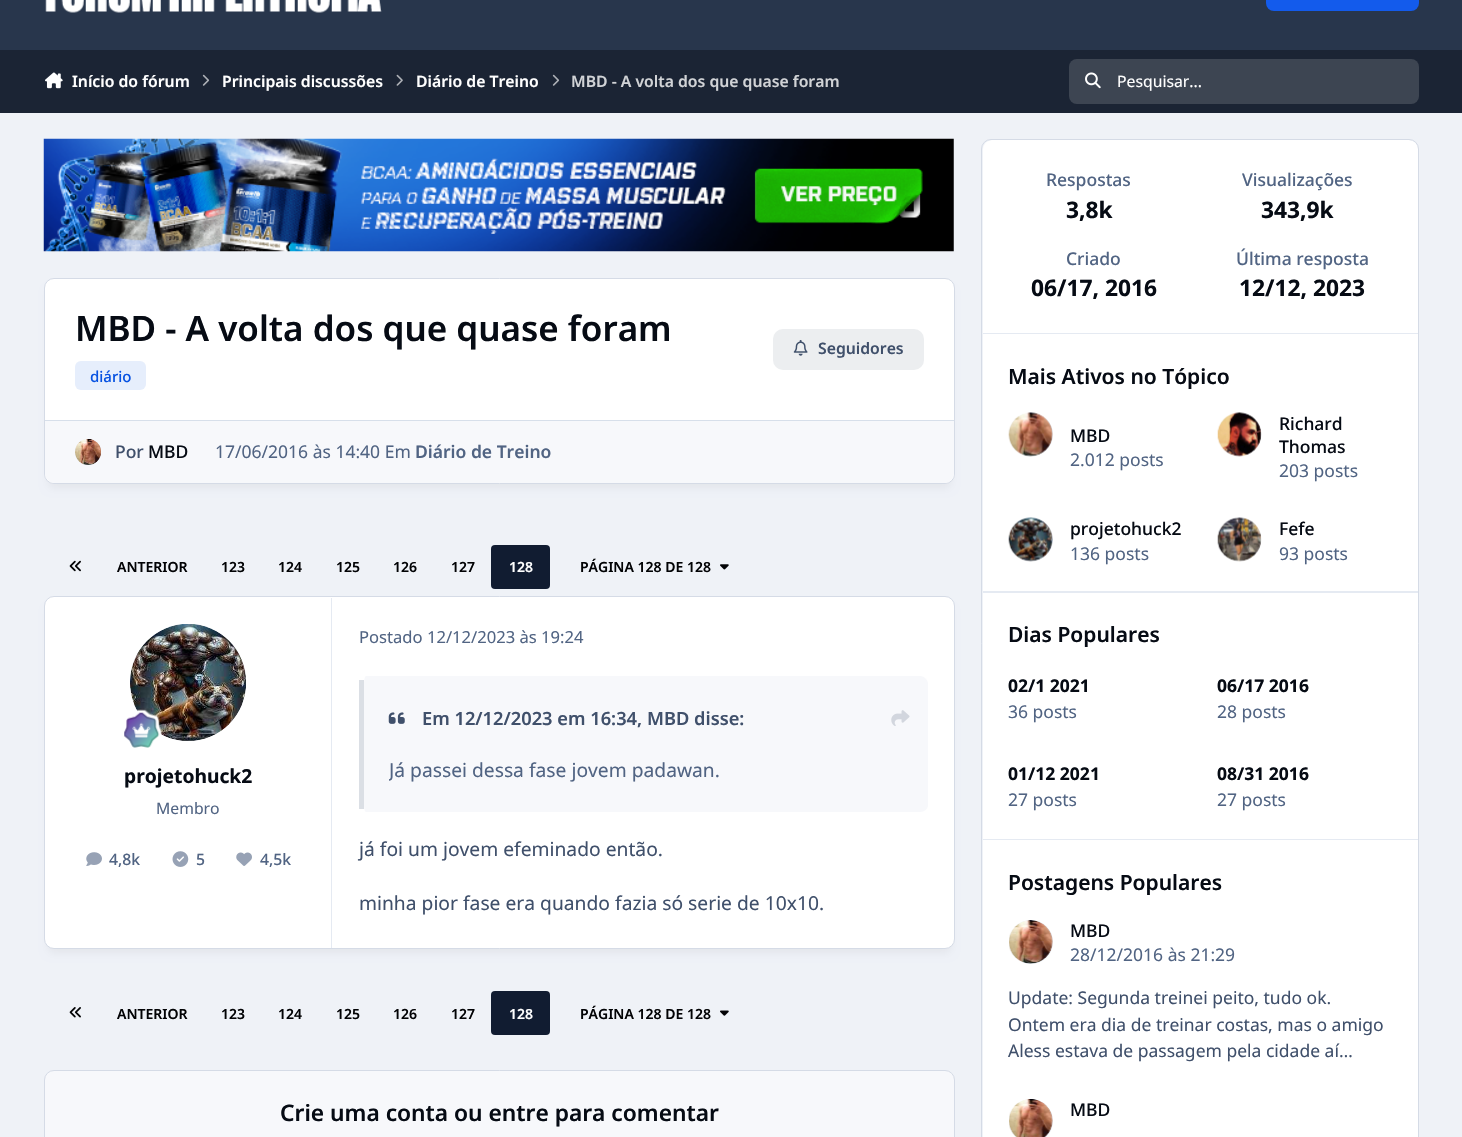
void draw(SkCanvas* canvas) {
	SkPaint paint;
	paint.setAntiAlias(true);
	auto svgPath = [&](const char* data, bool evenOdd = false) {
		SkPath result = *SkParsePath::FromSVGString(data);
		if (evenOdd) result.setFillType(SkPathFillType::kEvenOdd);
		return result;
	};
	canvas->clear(0xffeff2f7);
	paint.setColor(0xff28364c);
	canvas->drawRect(SkRect::MakeXYWH(0, 0, 1462, 50), paint);
	canvas->drawImageRect(SkImages::DeferredFromEncodedData(SkData::MakeFromFileName("img1.png")), SkRect::MakeXYWH(45, 0, 337, 13), SkSamplingOptions());
	paint.setColor(0xff135bec);
	canvas->drawRoundRect(SkRect::MakeXYWH(1266, -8, 153, 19), 8, 8, paint);
	paint.setColor(0xff1b2434);
	canvas->drawRect(SkRect::MakeXYWH(0, 50, 1462, 63), paint);
	canvas->drawImageRect(SkImages::DeferredFromEncodedData(SkData::MakeFromFileName("img2.png")), SkRect::MakeXYWH(45, 72, 18, 17), SkSamplingOptions());
	SkFont f1(fontMgr->matchFamilyStyle("Noto Sans", SkFontStyle(600, SkFontStyle::kNormal_Width, SkFontStyle::kUpright_Slant)), 15.75);
	f1.setSubpixel(true);
	paint.setColor(0xffffffff);
	canvas->drawString("Início do fórum", 72, 87, f1, paint);
	canvas->drawImageRect(SkImages::DeferredFromEncodedData(SkData::MakeFromFileName("img3.png")), SkRect::MakeXYWH(202, 74, 8, 12), SkSamplingOptions());
	canvas->drawString("Principais discussões", 222, 87, f1, paint);
	canvas->drawImageRect(SkImages::DeferredFromEncodedData(SkData::MakeFromFileName("img4.png")), SkRect::MakeXYWH(396, 74, 7, 12), SkSamplingOptions());
	canvas->drawString("Diário de Treino", 416, 87, f1, paint);
	canvas->drawImageRect(SkImages::DeferredFromEncodedData(SkData::MakeFromFileName("img3.png")), SkRect::MakeXYWH(552, 74, 8, 12), SkSamplingOptions());
	paint.setColor(0xffd1d3d6);
	canvas->drawString("MBD - A volta dos que quase foram", 571, 87, f1, paint);
	paint.setColor(0xff3d4552);
	canvas->drawRoundRect(SkRect::MakeXYWH(1069, 59, 350, 45), 8, 8, paint);
	canvas->drawImageRect(SkImages::DeferredFromEncodedData(SkData::MakeFromFileName("img5.png")), SkRect::MakeXYWH(1085, 72, 16, 17), SkSamplingOptions());
	SkFont f2(fontMgr->matchFamilyStyle("Noto Sans", SkFontStyle::Normal()), 15.75);
	f2.setSubpixel(true);
	paint.setColor(0xffffffff);
	canvas->drawString("Pesquisar...", 1117, 87, f2, paint);
	canvas->drawImageRect(SkImages::DeferredFromEncodedData(SkData::MakeFromFileName("img6.png")), SkRect::MakeXYWH(43, 138, 911, 114), SkSamplingOptions());
	paint.setColor(0x0d01030a);
	paint.setMaskFilter(SkMaskFilter::MakeBlur(kNormal_SkBlurStyle, 4.5));
	canvas->drawRoundRect(SkRect::MakeXYWH(48, 289, 903, 199), 6, 6, paint);
	paint.setMaskFilter(nullptr);
	paint.setColor(0xffffffff);
	canvas->drawRoundRect(SkRect::MakeXYWH(44.5, 278.5, 910, 205), 9.5, 9.5, paint);
	paint.setStroke(true);
	paint.setStrokeWidth(1);
	paint.setColor(0xffd5dbe6);
	canvas->drawRoundRect(SkRect::MakeXYWH(44.5, 278.5, 910, 205), 9.5, 9.5, paint);
	SkFont f3(fontMgr->matchFamilyStyle("Noto Sans", SkFontStyle(600, SkFontStyle::kNormal_Width, SkFontStyle::kUpright_Slant)), 35);
	f3.setSubpixel(true);
	paint.setStroke(false);
	paint.setColor(0xff060b14);
	canvas->drawString("MBD - A volta dos que quase foram", 75, 341, f3, paint);
	paint.setColor(0xffe6eefc);
	canvas->drawRoundRect(SkRect::MakeXYWH(75, 361, 71, 29), 6, 6, paint);
	SkFont f4(fontMgr->matchFamilyStyle("Noto Sans", SkFontStyle(500, SkFontStyle::kNormal_Width, SkFontStyle::kUpright_Slant)), 15);
	f4.setSubpixel(true);
	paint.setColor(0xff0752e2);
	canvas->drawString("diário", 90, 382, f4, paint);
	paint.setColor(0xffeceef0);
	canvas->drawRoundRect(SkRect::MakeXYWH(773, 329, 151, 41), 10, 10, paint);
	canvas->drawImageRect(SkImages::DeferredFromEncodedData(SkData::MakeFromFileName("img7.png")), SkRect::MakeXYWH(793, 340, 15, 16), SkSamplingOptions());
	paint.setColor(0xff40506b);
	canvas->drawString("Seguidores", 818, 354, f1, paint);
	paint.setColor(0xfff7f8fb);
	canvas->drawPath(svgPath("M45 420H954V473C954 478.5 949.5 483 944 483H55C49.5 483 45 478.5 45 473Z"), paint);
	paint.setColor(0xffd7dfea);
	canvas->drawRect(SkRect::MakeXYWH(45, 420, 909, 1), paint);
	paint.setColor(0xffe5eaf2);
	canvas->drawCircle(88, 452, 13, paint);
	canvas->drawImageRect(SkImages::DeferredFromEncodedData(SkData::MakeFromFileName("img8.png")), SkRect::MakeXYWH(75, 439, 26, 26), SkSamplingOptions());
	SkFont f5(fontMgr->matchFamilyStyle("Noto Sans", SkFontStyle(500, SkFontStyle::kNormal_Width, SkFontStyle::kUpright_Slant)), 17.5);
	f5.setSubpixel(true);
	paint.setColor(0xff40506b);
	canvas->drawString("Por", 115, 458, f5, paint);
	paint.setColor(0xff060b14);
	canvas->drawString("MBD", 148, 458, f5, paint);
	SkFont f6(fontMgr->matchFamilyStyle("Noto Sans", SkFontStyle::Normal()), 17.5);
	f6.setSubpixel(true);
	paint.setColor(0xff516483);
	canvas->drawString("17/06/2016 às 14:40 Em", 215, 458, f6, paint);
	SkFont f7(fontMgr->matchFamilyStyle("Noto Sans", SkFontStyle(600, SkFontStyle::kNormal_Width, SkFontStyle::kUpright_Slant)), 17.5);
	f7.setSubpixel(true);
	canvas->drawString("Diário de Treino", 415, 458, f7, paint);
	canvas->drawImageRect(SkImages::DeferredFromEncodedData(SkData::MakeFromFileName("img9.png")), SkRect::MakeXYWH(69, 560, 12, 12), SkSamplingOptions());
	SkFont f8(fontMgr->matchFamilyStyle("Noto Sans", SkFontStyle(600, SkFontStyle::kNormal_Width, SkFontStyle::kUpright_Slant)), 14);
	f8.setSubpixel(true);
	paint.setColor(0xff020305);
	canvas->drawString("ANTERIOR", 117, 572, f8, paint);
	canvas->drawString("123", 221, 572, f8, paint);
	canvas->drawString("124", 278, 572, f8, paint);
	canvas->drawString("125", 336, 572, f8, paint);
	canvas->drawString("126", 393, 572, f8, paint);
	canvas->drawString("127", 451, 572, f8, paint);
	paint.setColor(0xff111c31);
	canvas->drawRoundRect(SkRect::MakeXYWH(491, 545, 59, 44), 4, 4, paint);
	paint.setColor(0xffffffff);
	canvas->drawString("128", 509, 572, f8, paint);
	paint.setColor(0xff020305);
	canvas->drawString("PÁGINA 128 DE 128", 580, 572, f8, paint);
	canvas->drawImageRect(SkImages::DeferredFromEncodedData(SkData::MakeFromFileName("img10.png")), SkRect::MakeXYWH(720, 564, 9, 6), SkSamplingOptions());
	paint.setColor(0x0d01030a);
	paint.setMaskFilter(SkMaskFilter::MakeBlur(kNormal_SkBlurStyle, 4.5));
	canvas->drawRoundRect(SkRect::MakeXYWH(48, 608, 903, 345), 6, 6, paint);
	paint.setMaskFilter(nullptr);
	paint.setColor(0xffffffff);
	canvas->drawRoundRect(SkRect::MakeXYWH(44.5, 596.5, 910, 352), 9.5, 9.5, paint);
	paint.setStroke(true);
	paint.setColor(0xffd5dbe6);
	canvas->drawRoundRect(SkRect::MakeXYWH(44.5, 596.5, 910, 352), 9.5, 9.5, paint);
	paint.setStroke(false);
	paint.setColor(0xffe5eaf2);
	canvas->drawRect(SkRect::MakeXYWH(331, 598, 1, 350), paint);
	canvas->drawRoundRect(SkRect::MakeXYWH(130, 624, 116, 117), 58, 58, paint);
	canvas->drawImageRect(SkImages::DeferredFromEncodedData(SkData::MakeFromFileName("img11.png")), SkRect::MakeXYWH(130, 624, 116, 117), SkSamplingOptions());
	canvas->drawImageRect(SkImages::DeferredFromEncodedData(SkData::MakeFromFileName("img12.png")), SkRect::MakeXYWH(124, 709, 39, 39), SkSamplingOptions());
	SkFont f9(fontMgr->matchFamilyStyle("Noto Sans", SkFontStyle::Bold()), 19.25);
	f9.setSubpixel(true);
	paint.setColor(0xff060b14);
	canvas->drawString("projetohuck2", 124, 783, f9, paint);
	paint.setColor(0xff516483);
	canvas->drawString("Membro", 156, 814, f2, paint);
	canvas->drawImageRect(SkImages::DeferredFromEncodedData(SkData::MakeFromFileName("img13.png")), SkRect::MakeXYWH(86, 852, 16, 14), SkSamplingOptions());
	SkFont f10(fontMgr->matchFamilyStyle("Noto Sans", SkFontStyle(500, SkFontStyle::kNormal_Width, SkFontStyle::kUpright_Slant)), 15.75);
	f10.setSubpixel(true);
	canvas->drawString("4,8k", 109, 865, f10, paint);
	canvas->drawImageRect(SkImages::DeferredFromEncodedData(SkData::MakeFromFileName("img14.png")), SkRect::MakeXYWH(172, 851, 17, 16), SkSamplingOptions());
	canvas->drawString("5", 196, 865, f10, paint);
	canvas->drawImageRect(SkImages::DeferredFromEncodedData(SkData::MakeFromFileName("img15.png")), SkRect::MakeXYWH(236, 852, 16, 14), SkSamplingOptions());
	canvas->drawString("4,5k", 260, 865, f10, paint);
	SkFont f11(fontMgr->matchFamilyStyle("Noto Sans", SkFontStyle::Normal()), 16.6);
	f11.setSubpixel(true);
	canvas->drawString("Postado 12/12/2023 às 19:24", 359, 643, f11, paint);
	paint.setColor(0xfff7f8fb);
	canvas->drawPath(svgPath("M366 676H920C924 676 928 680 928 684V805C928 809 924 812 920 812H366C365 812 364 809 364 805V684C364 680 365 676 366 676Z"), paint);
	paint.setColor(0xffdbdfe5);
	canvas->drawRect(SkRect::MakeXYWH(359, 680, 5, 129), paint);
	canvas->drawImageRect(SkImages::DeferredFromEncodedData(SkData::MakeFromFileName("img16.png")), SkRect::MakeXYWH(388, 712, 17, 12), SkSamplingOptions());
	SkFont f12(fontMgr->matchFamilyStyle("Noto Sans", SkFontStyle(600, SkFontStyle::kNormal_Width, SkFontStyle::kUpright_Slant)), 18.25);
	f12.setSubpixel(true);
	paint.setColor(0xff40506b);
	canvas->drawString("Em 12/12/2023 em 16:34,", 422, 725, f12, paint);
	canvas->drawString("MBD disse:", 647, 725, f12, paint);
	canvas->drawImageRect(SkImages::DeferredFromEncodedData(SkData::MakeFromFileName("img17.png")), SkRect::MakeXYWH(891, 710, 19, 16), SkSamplingOptions());
	canvas->save();
	canvas->clipRect(SkRect::MakeXYWH(389, 754, 514, 34));
	SkFont f13(fontMgr->matchFamilyStyle("Noto Sans", SkFontStyle::Normal()), 19.25);
	f13.setSubpixel(true);
	paint.setColor(0xff516483);
	canvas->drawString("Já passei dessa fase jovem padawan.", 389, 777, f13, paint);
	canvas->restore();
	paint.setColor(0xff40506b);
	canvas->drawString("já foi um jovem efeminado então.", 359, 856, f13, paint);
	canvas->drawString("minha pior fase era quando fazia só serie de 10x10.", 359, 910, f13, paint);
	canvas->drawImageRect(SkImages::DeferredFromEncodedData(SkData::MakeFromFileName("img18.png")), SkRect::MakeXYWH(69, 1007, 12, 11), SkSamplingOptions());
	paint.setColor(0xff020305);
	canvas->drawString("ANTERIOR", 117, 1019, f8, paint);
	canvas->drawString("123", 221, 1019, f8, paint);
	canvas->drawString("124", 278, 1019, f8, paint);
	canvas->drawString("125", 336, 1019, f8, paint);
	canvas->drawString("126", 393, 1019, f8, paint);
	canvas->drawString("127", 451, 1019, f8, paint);
	paint.setColor(0xff111c31);
	canvas->drawRoundRect(SkRect::MakeXYWH(491, 991, 59, 44), 4, 4, paint);
	paint.setColor(0xffffffff);
	canvas->drawString("128", 509, 1019, f8, paint);
	paint.setColor(0xff020305);
	canvas->drawString("PÁGINA 128 DE 128", 580, 1019, f8, paint);
	canvas->drawImageRect(SkImages::DeferredFromEncodedData(SkData::MakeFromFileName("img19.png")), SkRect::MakeXYWH(720, 1010, 9, 6), SkSamplingOptions());
	paint.setColor(0xfff7f8fb);
	canvas->drawRoundRect(SkRect::MakeXYWH(44.5, 1070.5, 910, 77), 9.5, 9.5, paint);
	paint.setStroke(true);
	paint.setColor(0xffd5dbe6);
	canvas->drawRoundRect(SkRect::MakeXYWH(44.5, 1070.5, 910, 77), 9.5, 9.5, paint);
	SkFont f14(fontMgr->matchFamilyStyle("Noto Sans", SkFontStyle(600, SkFontStyle::kNormal_Width, SkFontStyle::kUpright_Slant)), 22.75);
	f14.setSubpixel(true);
	paint.setStroke(false);
	paint.setColor(0xff060b14);
	canvas->drawString("Crie uma conta ou entre para comentar", 280, 1121, f14, paint);
	paint.setColor(0xffffffff);
	canvas->drawRoundRect(SkRect::MakeXYWH(983, 140, 435, 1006), 9, 9, paint);
	paint.setStroke(true);
	paint.setColor(0xffd5dbe6);
	canvas->drawRoundRect(SkRect::MakeXYWH(981.5, 139.5, 437, 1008), 9.5, 9.5, paint);
	paint.setStroke(false);
	paint.setColor(0xff516483);
	canvas->drawString("Respostas", 1046, 186, f5, paint);
	SkFont f15(fontMgr->matchFamilyStyle("Noto Sans", SkFontStyle::Bold()), 22.75);
	f15.setSubpixel(true);
	paint.setColor(0xff060b14);
	canvas->drawString("3,8k", 1066, 218, f15, paint);
	paint.setColor(0xff516483);
	canvas->drawString("Visualizações", 1242, 186, f5, paint);
	paint.setColor(0xff060b14);
	canvas->drawString("343,9k", 1261, 218, f15, paint);
	paint.setColor(0xff516483);
	canvas->drawString("Criado", 1066, 265, f5, paint);
	paint.setColor(0xff060b14);
	canvas->drawString("06/17, 2016", 1031, 296, f15, paint);
	paint.setColor(0xff516483);
	canvas->drawString("Última resposta", 1236, 265, f5, paint);
	paint.setColor(0xff060b14);
	canvas->drawString("12/12, 2023", 1239, 296, f15, paint);
	SkFont f16(fontMgr->matchFamilyStyle("Noto Sans", SkFontStyle(600, SkFontStyle::kNormal_Width, SkFontStyle::kUpright_Slant)), 21);
	f16.setSubpixel(true);
	canvas->drawString("Mais Ativos no Tópico", 1008, 384, f16, paint);
	canvas->drawString("MBD", 1070, 442, f5, paint);
	paint.setColor(0xff516483);
	canvas->drawString("2.012 posts", 1070, 466, f6, paint);
	paint.setColor(0xff060b14);
	canvas->drawString("Richard", 1279, 430, f5, paint);
	canvas->drawString("Thomas", 1279, 453, f5, paint);
	paint.setColor(0xff516483);
	canvas->drawString("203 posts", 1279, 477, f6, paint);
	paint.setColor(0xff060b14);
	canvas->drawString("projetohuck2", 1070, 535, f5, paint);
	paint.setColor(0xff516483);
	canvas->drawString("136 posts", 1070, 560, f6, paint);
	paint.setColor(0xff060b14);
	canvas->drawString("Fefe", 1279, 535, f5, paint);
	paint.setColor(0xff516483);
	canvas->drawString("93 posts", 1279, 560, f6, paint);
	paint.setColor(0xffe5eaf2);
	canvas->drawPath(svgPath("M1418 593H983V592H1418ZM1418 333H983V334H1418Z", true), paint);
	canvas->drawRoundRect(SkRect::MakeXYWH(1009, 413, 44, 43), 21.5, 21.5, paint);
	canvas->drawImageRect(SkImages::DeferredFromEncodedData(SkData::MakeFromFileName("img20.png")), SkRect::MakeXYWH(1008, 412, 45, 45), SkSamplingOptions());
	canvas->drawCircle(1239.5, 434.5, 21.5, paint);
	canvas->drawImageRect(SkImages::DeferredFromEncodedData(SkData::MakeFromFileName("img21.png")), SkRect::MakeXYWH(1217, 412, 45, 45), SkSamplingOptions());
	canvas->drawRoundRect(SkRect::MakeXYWH(1009, 518, 44, 43), 21.5, 21.5, paint);
	canvas->drawImageRect(SkImages::DeferredFromEncodedData(SkData::MakeFromFileName("img22.png")), SkRect::MakeXYWH(1008, 517, 45, 45), SkSamplingOptions());
	canvas->drawCircle(1239.5, 539.5, 21.5, paint);
	canvas->drawImageRect(SkImages::DeferredFromEncodedData(SkData::MakeFromFileName("img23.png")), SkRect::MakeXYWH(1217, 517, 45, 45), SkSamplingOptions());
	paint.setColor(0xff060b14);
	canvas->drawString("Dias Populares", 1008, 642, f16, paint);
	SkFont f17(fontMgr->matchFamilyStyle("Noto Sans", SkFontStyle::Bold()), 17.5);
	f17.setSubpixel(true);
	canvas->drawString("02/1 2021", 1008, 692, f17, paint);
	paint.setColor(0xff516483);
	canvas->drawString("36 posts", 1008, 718, f6, paint);
	paint.setColor(0xff060b14);
	canvas->drawString("06/17 2016", 1217, 692, f17, paint);
	paint.setColor(0xff516483);
	canvas->drawString("28 posts", 1217, 718, f6, paint);
	paint.setColor(0xff060b14);
	canvas->drawString("01/12 2021", 1008, 780, f17, paint);
	paint.setColor(0xff516483);
	canvas->drawString("27 posts", 1008, 806, f6, paint);
	paint.setColor(0xff060b14);
	canvas->drawString("08/31 2016", 1217, 780, f17, paint);
	paint.setColor(0xff516483);
	canvas->drawString("27 posts", 1217, 806, f6, paint);
	paint.setColor(0xffe5eaf2);
	canvas->drawPath(svgPath("M1418 840H983V839H1418ZM1418 591H983V592H1418Z", true), paint);
	paint.setColor(0xff060b14);
	canvas->drawString("Postagens Populares", 1008, 890, f16, paint);
	paint.setColor(0xffe5eaf2);
	canvas->drawCircle(1031, 942, 22, paint);
	canvas->drawImageRect(SkImages::DeferredFromEncodedData(SkData::MakeFromFileName("img24.png")), SkRect::MakeXYWH(1009, 920, 44, 44), SkSamplingOptions());
	paint.setColor(0xff060b14);
	canvas->drawString("MBD", 1070, 937, f5, paint);
	paint.setColor(0xff516483);
	canvas->drawString("28/12/2016 às 21:29", 1070, 961, f6, paint);
	paint.setColor(0xff40506b);
	canvas->drawString("Update: Segunda treinei peito, tudo ok.", 1008, 1004, f6, paint);
	canvas->drawString("Ontem era dia de treinar costas, mas o amigo", 1008, 1031, f6, paint);
	canvas->drawString("Aless estava de passagem pela cidade aí…", 1008, 1057, f6, paint);
	paint.setColor(0xffe5eaf2);
	canvas->drawCircle(1031, 1121, 22, paint);
	canvas->drawImageRect(SkImages::DeferredFromEncodedData(SkData::MakeFromFileName("img25.png")), SkRect::MakeXYWH(1009, 1099, 44, 38), SkSamplingOptions());
	paint.setColor(0xff060b14);
	canvas->drawString("MBD", 1070, 1116, f5, paint);
}
